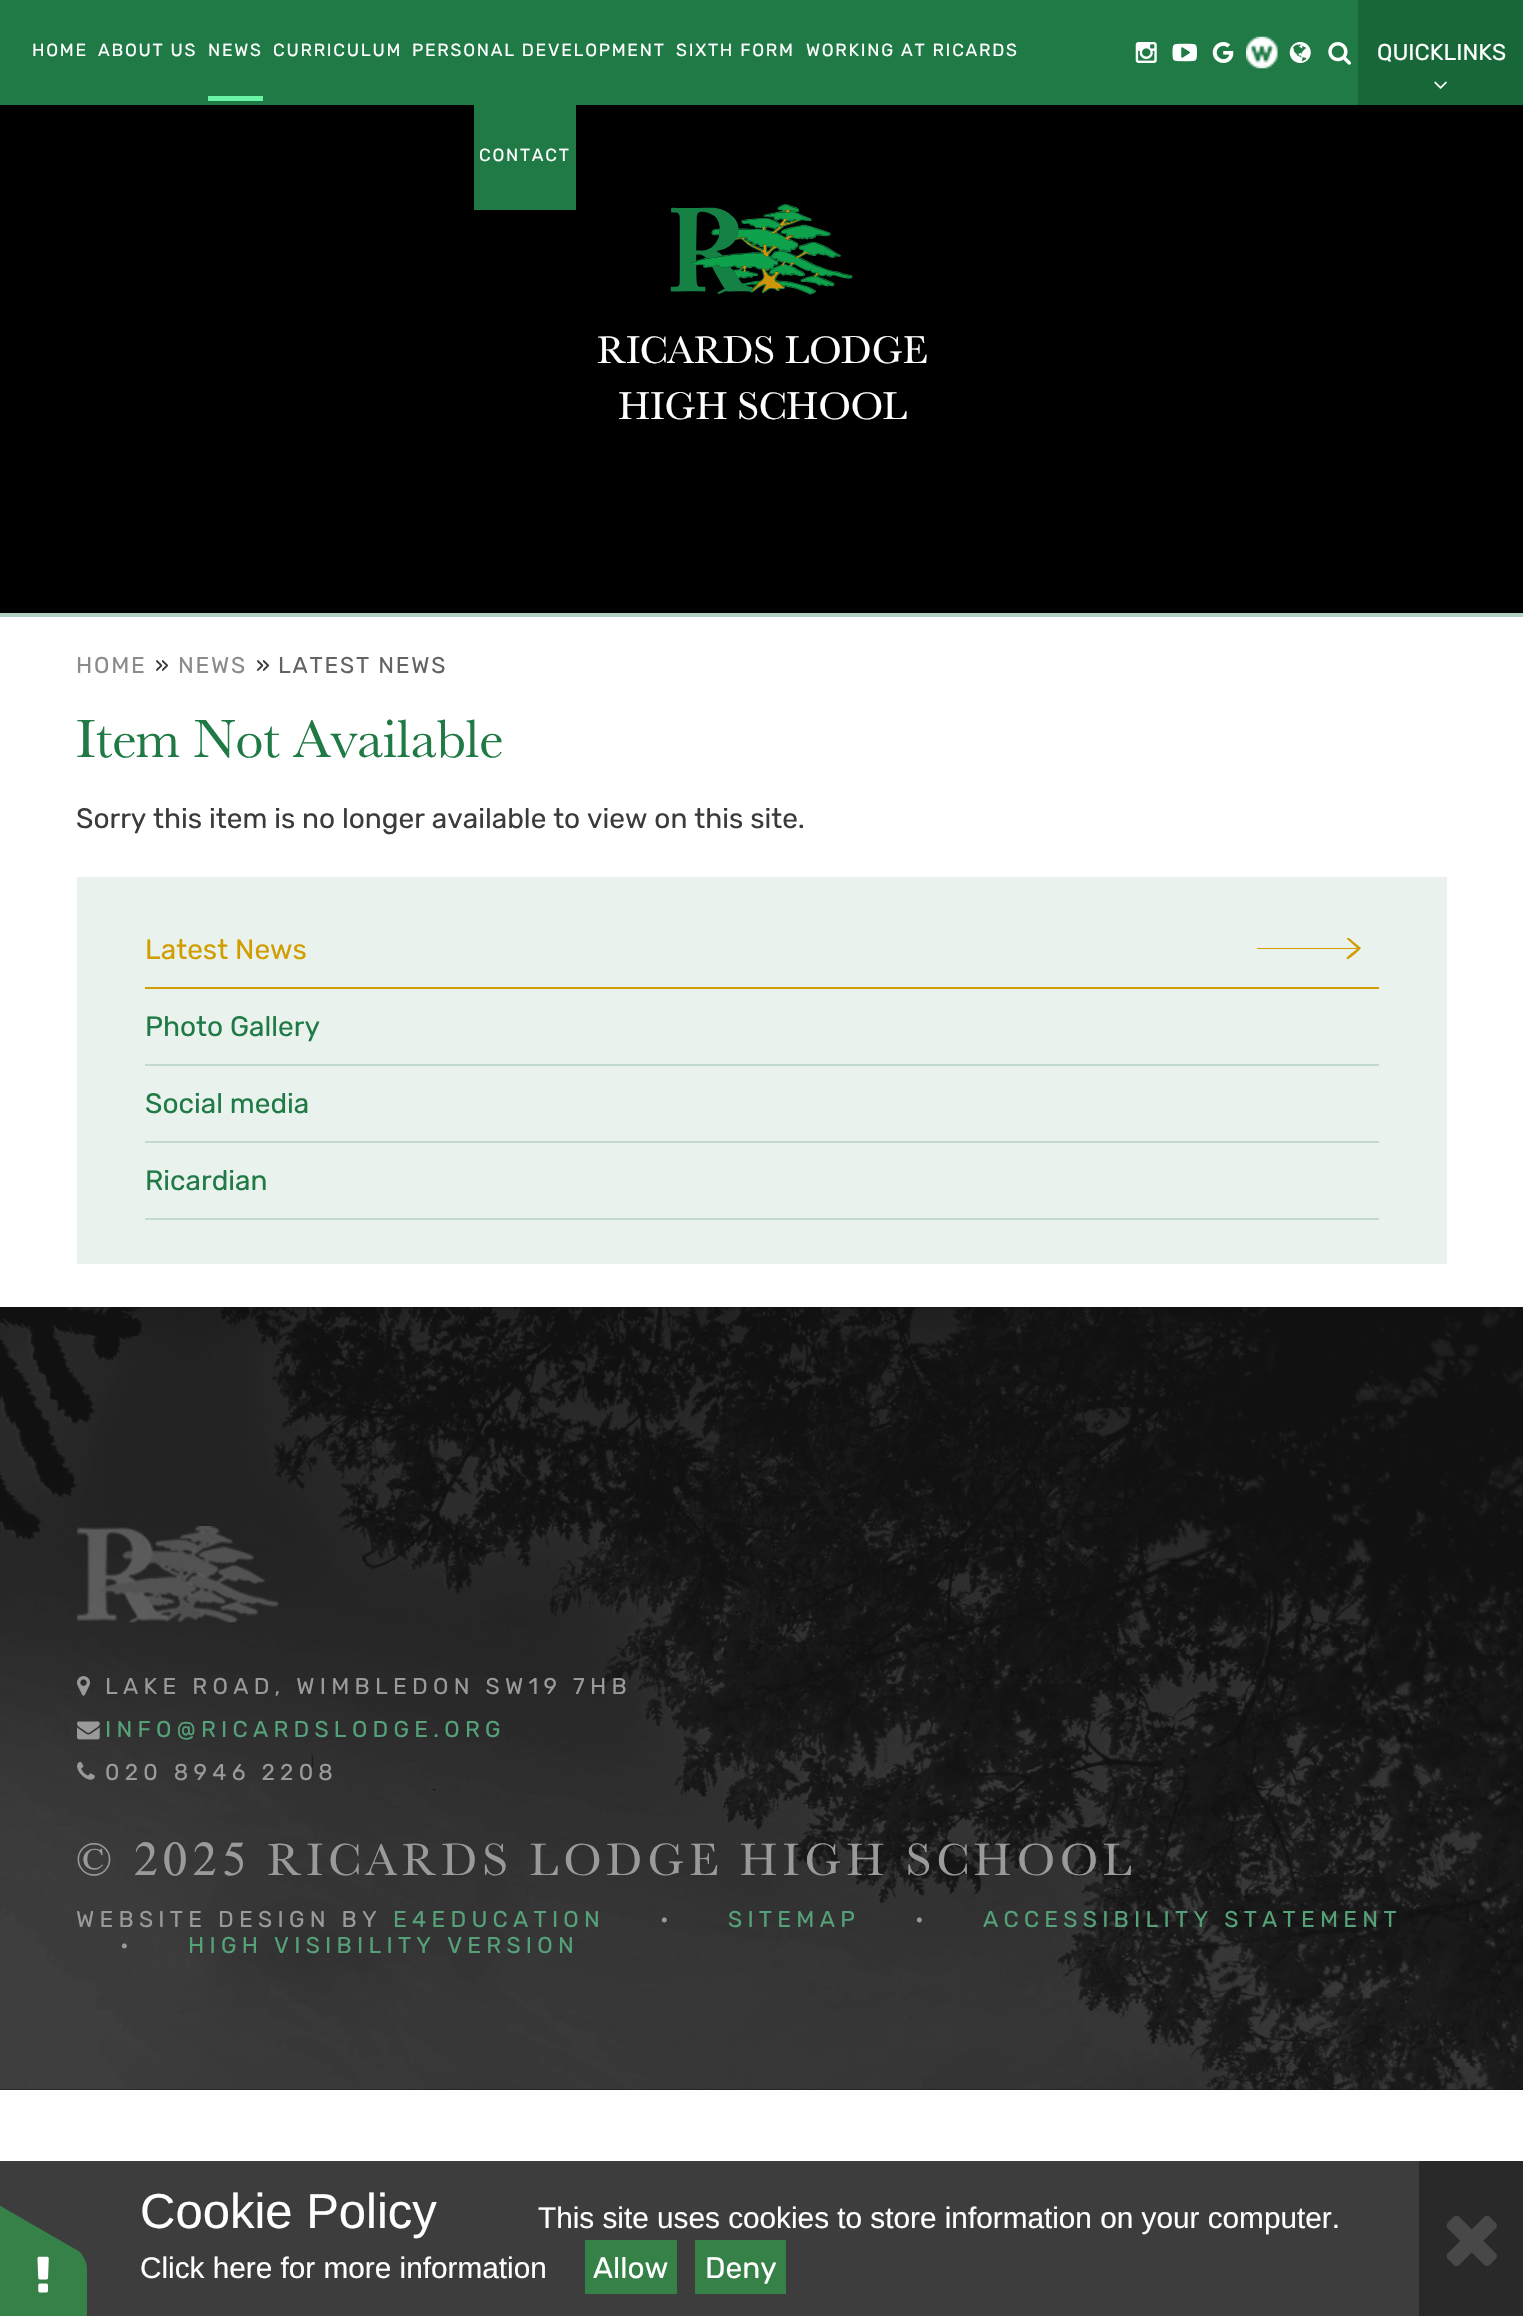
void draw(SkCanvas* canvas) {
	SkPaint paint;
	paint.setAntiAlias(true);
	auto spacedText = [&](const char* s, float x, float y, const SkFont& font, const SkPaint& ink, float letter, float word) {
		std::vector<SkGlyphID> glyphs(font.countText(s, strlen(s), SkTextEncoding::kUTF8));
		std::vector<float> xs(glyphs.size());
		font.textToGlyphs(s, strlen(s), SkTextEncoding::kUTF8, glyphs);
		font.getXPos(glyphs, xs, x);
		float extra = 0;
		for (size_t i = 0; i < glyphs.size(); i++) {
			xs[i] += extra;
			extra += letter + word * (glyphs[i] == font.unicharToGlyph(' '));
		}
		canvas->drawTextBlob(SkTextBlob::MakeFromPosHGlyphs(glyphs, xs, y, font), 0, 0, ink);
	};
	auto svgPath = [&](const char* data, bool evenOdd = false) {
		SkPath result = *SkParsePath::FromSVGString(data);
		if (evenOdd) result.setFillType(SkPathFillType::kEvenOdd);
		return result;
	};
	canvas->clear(0xffffffff);
	paint.setColor(0xff207a46);
	canvas->drawRect(SkRect::MakeXYWH(0, 0, 1358, 105), paint);
	SkFont f1(fontMgr->matchFamilyStyle("Rubik", SkFontStyle::Normal()), 17.5);
	f1.setSubpixel(true);
	paint.setColor(0xffffffff);
	spacedText("HOME", 32, 56, f1, paint, 1.75, 0);
	spacedText("ABOUT US", 98, 56, f1, paint, 1.75, 0);
	spacedText("NEWS", 208, 56, f1, paint, 1.75, 0);
	paint.setColor(0xff6bf4a5);
	canvas->drawRect(SkRect::MakeXYWH(208, 96, 55, 5), paint);
	paint.setColor(0xffffffff);
	spacedText("CURRICULUM", 273, 56, f1, paint, 1.75, 0);
	spacedText("PERSONAL DEVELOPMENT", 412, 56, f1, paint, 1.75, 0);
	spacedText("SIXTH FORM", 676, 56, f1, paint, 1.75, 0);
	spacedText("WORKING AT RICARDS", 806, 56, f1, paint, 1.75, 0);
	paint.setColor(0xff000000);
	canvas->drawRect(SkRect::MakeXYWH(0, 105, 1523, 508), paint);
	paint.setColor(0xff207a46);
	canvas->drawRect(SkRect::MakeXYWH(474, 105, 102, 105), paint);
	paint.setColor(0xffffffff);
	spacedText("CONTACT", 479, 161, f1, paint, 1.75, 0);
	canvas->drawImageRect(SkImages::DeferredFromEncodedData(SkData::MakeFromFileName("img1.png")), SkRect::MakeXYWH(1135, 42, 22, 21), SkSamplingOptions());
	canvas->drawImageRect(SkImages::DeferredFromEncodedData(SkData::MakeFromFileName("img2.png")), SkRect::MakeXYWH(1172, 43, 25, 19), SkSamplingOptions());
	canvas->drawImageRect(SkImages::DeferredFromEncodedData(SkData::MakeFromFileName("img3.png")), SkRect::MakeXYWH(1212, 42, 22, 21), SkSamplingOptions());
	canvas->drawImageRect(SkImages::DeferredFromEncodedData(SkData::MakeFromFileName("img4.png")), SkRect::MakeXYWH(1246, 36, 32, 33), SkSamplingOptions());
	canvas->drawImageRect(SkImages::DeferredFromEncodedData(SkData::MakeFromFileName("img5.png")), SkRect::MakeXYWH(1289, 42, 22, 21), SkSamplingOptions());
	canvas->drawImageRect(SkImages::DeferredFromEncodedData(SkData::MakeFromFileName("img6.png")), SkRect::MakeXYWH(1328, 42, 23, 23), SkSamplingOptions());
	paint.setColor(0xff176739);
	canvas->drawRect(SkRect::MakeXYWH(1358, 0, 165, 105), paint);
	SkFont f2(fontMgr->matchFamilyStyle("Rubik", SkFontStyle::Normal()), 22.75);
	f2.setSubpixel(true);
	paint.setColor(0xffffffff);
	canvas->drawString("QUICKLINKS", 1377, 60, f2, paint);
	canvas->drawImageRect(SkImages::DeferredFromEncodedData(SkData::MakeFromFileName("img7.png")), SkRect::MakeXYWH(1434, 81, 13, 8), SkSamplingOptions());
	canvas->drawImageRect(SkImages::DeferredFromEncodedData(SkData::MakeFromFileName("img8.png")), SkRect::MakeXYWH(670, 204, 183, 91), SkSamplingOptions());
	SkFont f3(fontMgr->matchFamilyStyle("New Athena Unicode", SkFontStyle::Normal()), 40.25);
	f3.setSubpixel(true);
	canvas->drawString("RICARDS LODGE", 597, 363, f3, paint);
	canvas->drawString("HIGH SCHOOL", 618, 419, f3, paint);
	paint.setColor(0xffb1d0be);
	canvas->drawRect(SkRect::MakeXYWH(0, 613, 1523, 4), paint);
	paint.setColor(0xff8b8b8b);
	spacedText("HOME", 76, 673, f2, paint, 1.75, 0);
	paint.setColor(0xff3b3b3b);
	canvas->drawString("»", 155, 673, f2, paint);
	paint.setColor(0xff8b8b8b);
	spacedText("NEWS", 178, 673, f2, paint, 1.75, 0);
	paint.setColor(0xff3b3b3b);
	canvas->drawString("»", 256, 673, f2, paint);
	paint.setColor(0xff636363);
	spacedText("LATEST NEWS", 278, 673, f2, paint, 1.75, 0);
	SkFont f4(fontMgr->matchFamilyStyle("New Athena Unicode", SkFontStyle::Normal()), 56);
	f4.setSubpixel(true);
	paint.setColor(0xff207a46);
	canvas->drawString("Item Not Available", 76, 757, f4, paint);
	SkFont f5(fontMgr->matchFamilyStyle("Rubik", SkFontStyle::Normal()), 28);
	f5.setSubpixel(true);
	paint.setColor(0xff3b3b3b);
	canvas->drawString("Sorry this item is no longer available to view on this site.", 76, 828, f5, paint);
	paint.setColor(0xffe9f2ed);
	canvas->drawRect(SkRect::MakeXYWH(77, 877, 1370, 387), paint);
	paint.setColor(0xffd19d00);
	canvas->drawRect(SkRect::MakeXYWH(145, 987, 1234, 2), paint);
	canvas->drawString("Latest News", 145, 959, f5, paint);
	canvas->drawPath(svgPath("M1349 938C1348 938 1346 938 1347 939L1357 948H1257C1256 948 1257 949 1258 949H1357C1355 951 1344 958 1347 959C1349 960 1360 950 1361 948Z"), paint);
	paint.setColor(0xffc1dacc);
	canvas->drawRect(SkRect::MakeXYWH(145, 1064, 1234, 2), paint);
	paint.setColor(0xff207a46);
	canvas->drawString("Photo Gallery", 145, 1036, f5, paint);
	paint.setColor(0xffc1dacc);
	canvas->drawRect(SkRect::MakeXYWH(145, 1141, 1234, 2), paint);
	paint.setColor(0xff207a46);
	canvas->drawString("Social media", 145, 1113, f5, paint);
	paint.setColor(0xffc1dacc);
	canvas->drawRect(SkRect::MakeXYWH(145, 1218, 1234, 2), paint);
	paint.setColor(0xff207a46);
	canvas->drawString("Ricardian", 145, 1190, f5, paint);
	paint.setColor(0xff121212);
	canvas->drawRect(SkRect::MakeXYWH(0, 1307, 1523, 783), paint);
	canvas->drawImageRect(SkImages::DeferredFromEncodedData(SkData::MakeFromFileName("img9.png")), SkRect::MakeXYWH(0, 1307, 1523, 783), SkSamplingOptions());
	canvas->drawImageRect(SkImages::DeferredFromEncodedData(SkData::MakeFromFileName("img10.png")), SkRect::MakeXYWH(77, 1526, 202, 97), SkSamplingOptions());
	canvas->drawImageRect(SkImages::DeferredFromEncodedData(SkData::MakeFromFileName("img11.png")), SkRect::MakeXYWH(77, 1676, 13, 20), SkSamplingOptions());
	paint.setColor(0xff9a9a9a);
	spacedText("LAKE ROAD, WIMBLEDON SW19 7HB", 105, 1694, f2, paint, 5.25, 0);
	canvas->drawImageRect(SkImages::DeferredFromEncodedData(SkData::MakeFromFileName("img12.png")), SkRect::MakeXYWH(77, 1721, 23, 19), SkSamplingOptions());
	paint.setColor(0xff55a178);
	spacedText("INFO@RICARDSLODGE.ORG", 105, 1737, f2, paint, 5.25, 0);
	canvas->drawImageRect(SkImages::DeferredFromEncodedData(SkData::MakeFromFileName("img13.png")), SkRect::MakeXYWH(77, 1761, 18, 19), SkSamplingOptions());
	paint.setColor(0xff9a9a9a);
	spacedText("020 8946 2208", 105, 1780, f2, paint, 5.25, 0);
	SkFont f6(fontMgr->matchFamilyStyle("New Athena Unicode", SkFontStyle::Normal()), 47.25);
	f6.setSubpixel(true);
	spacedText("© 2025 RICARDS LODGE HIGH SCHOOL", 76, 1875, f6, paint, 5.25, 0);
	spacedText("WEBSITE DESIGN BY", 76, 1927, f2, paint, 5.25, 0);
	paint.setColor(0xff55a178);
	spacedText("E4EDUCATION", 393, 1927, f2, paint, 5.25, 0);
	paint.setColor(0xff9a9a9a);
	spacedText("•", 660, 1927, f2, paint, 5.25, 0);
	paint.setColor(0xff55a178);
	spacedText("SITEMAP", 728, 1927, f2, paint, 5.25, 0);
	paint.setColor(0xff9a9a9a);
	spacedText("•", 915, 1927, f2, paint, 5.25, 0);
	paint.setColor(0xff55a178);
	spacedText("ACCESSIBILITY STATEMENT", 983, 1927, f2, paint, 5.25, 0);
	paint.setColor(0xff9a9a9a);
	spacedText("•", 120, 1953, f2, paint, 5.25, 0);
	paint.setColor(0xff55a178);
	spacedText("HIGH VISIBILITY VERSION", 188, 1953, f2, paint, 5.25, 0);
	paint.setColor(0xff3d3d3d);
	canvas->drawRect(SkRect::MakeXYWH(0, 2161, 1419, 155), paint);
	paint.setColor(0xff368148);
	canvas->drawPath(svgPath("M87 2270V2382C87 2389 84 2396 80 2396H-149C-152 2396-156 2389-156 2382V2270C-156 2262-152 2256-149 2256H80C84 2256 87 2262 87 2270Z"), paint);
	canvas->drawPath(svgPath("M-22 2193L75 2249C82 2252 85 2258 83 2262L-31 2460C-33 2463-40 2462-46 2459L-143 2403C-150 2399-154 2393-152 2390L-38 2192C-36 2188-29 2189-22 2193Z"), paint);
	canvas->drawImageRect(SkImages::DeferredFromEncodedData(SkData::MakeFromFileName("img14.png")), SkRect::MakeXYWH(37, 2256, 12, 37), SkSamplingOptions());
	SkFont f7(fontMgr->matchFamilyStyle("Liberation Sans", SkFontStyle::Normal()), 49);
	f7.setSubpixel(true);
	paint.setColor(0xffffffff);
	canvas->drawString("Cookie Policy", 140, 2228, f7, paint);
	SkFont f8(fontMgr->matchFamilyStyle("Liberation Sans", SkFontStyle::Normal()), 29.75);
	f8.setSubpixel(true);
	canvas->drawString("This site uses cookies to store information on your computer.", 538, 2228, f8, paint);
	canvas->drawString("Click here for more information", 140, 2278, f8, paint);
	paint.setColor(0xff368148);
	canvas->drawRect(SkRect::MakeXYWH(585, 2240, 92, 54), paint);
	SkFont f9(fontMgr->matchFamilyStyle("Rubik", SkFontStyle::Normal()), 29.75);
	f9.setSubpixel(true);
	paint.setColor(0xffffffff);
	canvas->drawString("Allow", 593, 2278, f9, paint);
	paint.setColor(0xff368148);
	canvas->drawRect(SkRect::MakeXYWH(695, 2240, 91, 54), paint);
	paint.setColor(0xffffffff);
	canvas->drawString("Deny", 705, 2278, f9, paint);
	paint.setColor(0xff292929);
	canvas->drawRect(SkRect::MakeXYWH(1419, 2161, 104, 155), paint);
	canvas->drawImageRect(SkImages::DeferredFromEncodedData(SkData::MakeFromFileName("img15.png")), SkRect::MakeXYWH(1446, 2215, 51, 51), SkSamplingOptions());
}
